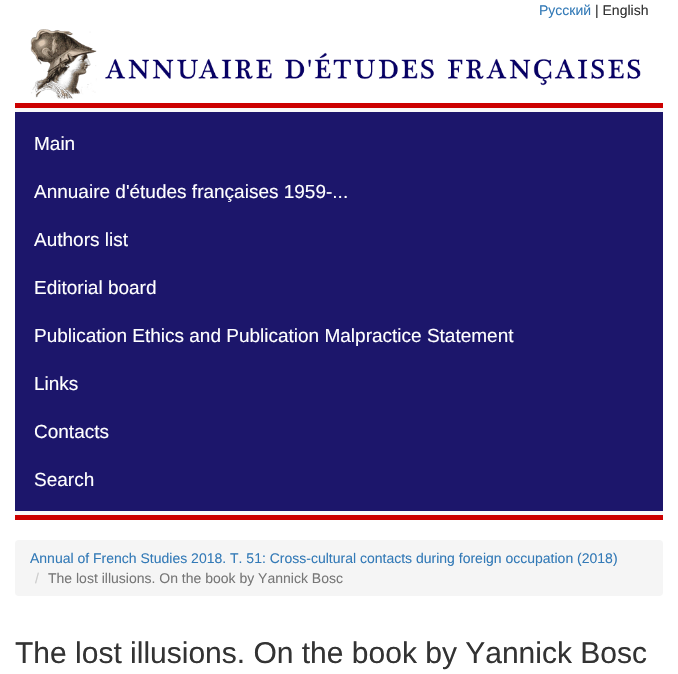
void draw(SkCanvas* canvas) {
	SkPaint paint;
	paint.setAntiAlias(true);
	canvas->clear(0xffffffff);
	SkFont f1(fontMgr->matchFamilyStyle("Liberation Sans", SkFontStyle::Normal()), 14);
	f1.setSubpixel(true);
	paint.setColor(0xff337ab7);
	canvas->drawString("Русский", 539, 15, f1, paint);
	paint.setColor(0xff333333);
	canvas->drawString("| English", 595, 15, f1, paint);
	canvas->drawImageRect(SkImages::DeferredFromEncodedData(SkData::MakeFromFileName("img1.png")), SkRect::MakeXYWH(30, 29, 611, 70), SkSamplingOptions());
	paint.setColor(0xfff8f8f8);
	canvas->drawRect(SkRect::MakeXYWH(15, 108, 648, 407), paint);
	paint.setColor(0xffcc0000);
	canvas->drawRect(SkRect::MakeXYWH(15, 103, 648, 5), paint);
	canvas->drawRect(SkRect::MakeXYWH(15, 515, 648, 5), paint);
	paint.setColor(0xff1c166b);
	canvas->drawRect(SkRect::MakeXYWH(15, 112, 648, 399), paint);
	SkFont f2(fontMgr->matchFamilyStyle("Liberation Sans", SkFontStyle::Normal()), 19);
	f2.setSubpixel(true);
	paint.setColor(0xffffffff);
	canvas->drawString("Main", 34, 150, f2, paint);
	canvas->drawString("Annuaire d'études françaises 1959-...", 34, 198, f2, paint);
	canvas->drawString("Authors list", 34, 246, f2, paint);
	canvas->drawString("Editorial board", 34, 294, f2, paint);
	canvas->drawString("Publication Ethics and Publication Malpractice Statement", 34, 342, f2, paint);
	canvas->drawString("Links", 34, 390, f2, paint);
	canvas->drawString("Contacts", 34, 438, f2, paint);
	canvas->drawString("Search", 34, 486, f2, paint);
	paint.setColor(0xfff5f5f5);
	canvas->drawRoundRect(SkRect::MakeXYWH(15, 540, 648, 56), 4, 4, paint);
	paint.setColor(0xff337ab7);
	canvas->drawString("Annual of French Studies 2018. Т. 51: Cross-cultural contacts during foreign occupation (2018)", 30, 563, f1, paint);
	paint.setColor(0xffcccccc);
	canvas->drawString("/", 35, 583, f1, paint);
	paint.setColor(0xff777777);
	canvas->drawString("The lost illusions. On the book by Yannick Bosc", 48, 583, f1, paint);
	SkFont f3(fontMgr->matchFamilyStyle("Liberation Sans", SkFontStyle::Normal()), 30);
	f3.setSubpixel(true);
	paint.setColor(0xff333333);
	canvas->drawString("The lost illusions. On the book by Yannick Bosc", 15, 663, f3, paint);
}
